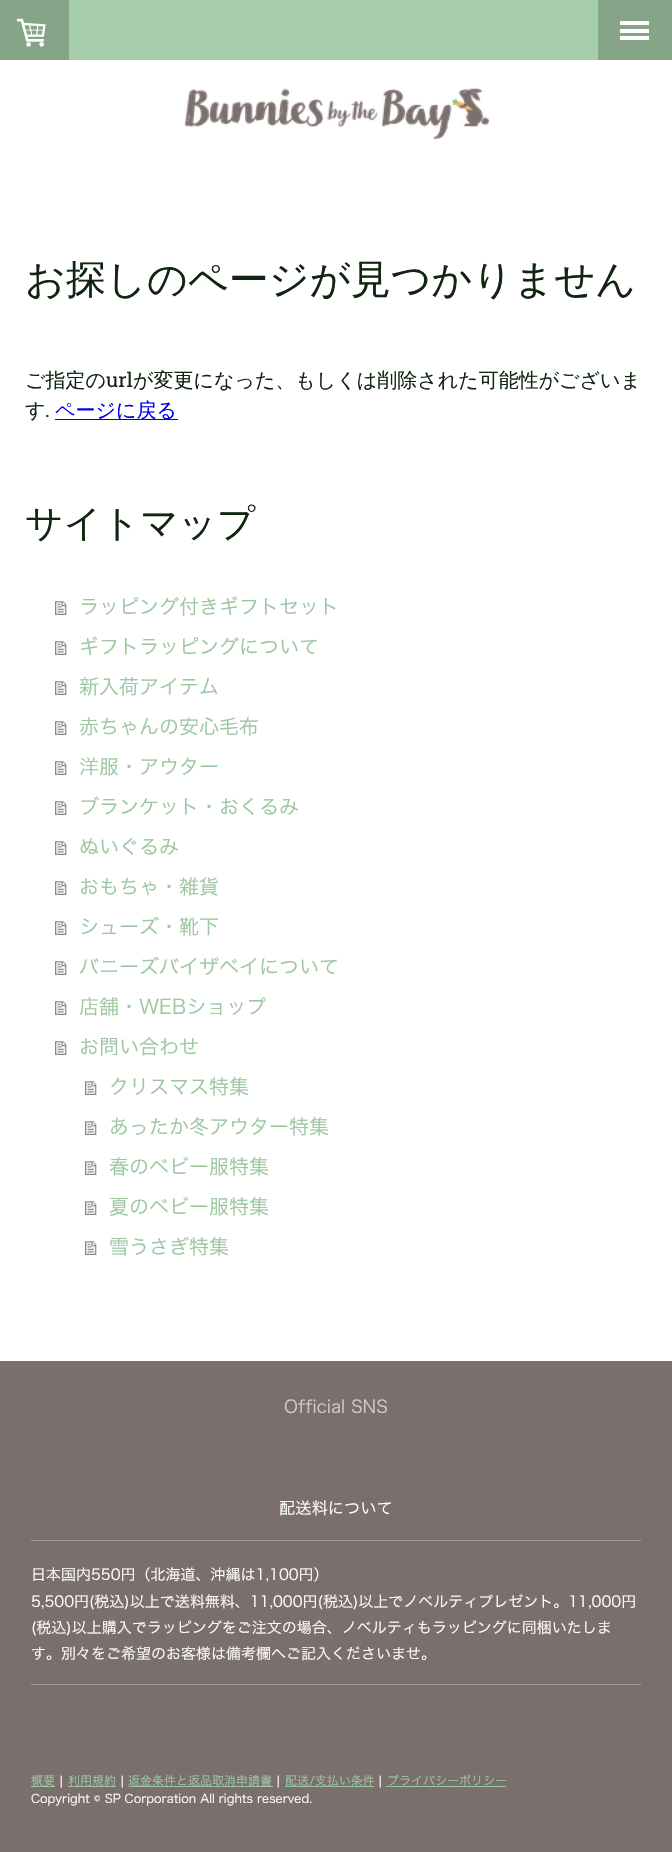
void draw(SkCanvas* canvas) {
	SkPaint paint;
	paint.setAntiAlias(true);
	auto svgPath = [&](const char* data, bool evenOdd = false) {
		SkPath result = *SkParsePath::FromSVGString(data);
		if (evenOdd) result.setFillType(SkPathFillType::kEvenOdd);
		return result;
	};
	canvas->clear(0xffffffff);
	paint.setColor(0xffa6cdaa);
	canvas->drawRect(SkRect::MakeXYWH(0, 0, 598, 60), paint);
	paint.setColor(0xff85a488);
	canvas->drawPath(svgPath("M1 0H68C68.5 0 69 .5 69 1V60H0V1C0 .5 .5 0 1 0Z"), paint);
	canvas->drawImageRect(SkImages::DeferredFromEncodedData(SkData::MakeFromFileName("img1.png")), SkRect::MakeXYWH(16, 18, 30, 29), SkSamplingOptions());
	canvas->drawImageRect(SkImages::DeferredFromEncodedData(SkData::MakeFromFileName("img2.png")), SkRect::MakeXYWH(184, 87, 306, 53), SkSamplingOptions());
	canvas->drawRect(SkRect::MakeXYWH(598, 0, 74, 60), paint);
	paint.setColor(0xffffffff);
	canvas->drawRect(SkRect::MakeXYWH(620, 29, 29, 4), paint);
	canvas->drawRect(SkRect::MakeXYWH(620, 21, 29, 4), paint);
	canvas->drawRect(SkRect::MakeXYWH(620, 36, 29, 4), paint);
	SkFont f1(fontMgr->matchFamilyStyle("WenQuanYi Zen Hei", SkFontStyle(500, SkFontStyle::kNormal_Width, SkFontStyle::kUpright_Slant)), 40);
	f1.setSubpixel(true);
	paint.setColor(0xff112611);
	canvas->drawString("お探しのページが見つかりません", 25, 293, f1, paint);
	SkFont f2(fontMgr->matchFamilyStyle("WenQuanYi Zen Hei", SkFontStyle(500, SkFontStyle::kNormal_Width, SkFontStyle::kUpright_Slant)), 20);
	f2.setSubpixel(true);
	canvas->drawString("ご指定の", 25, 387, f2, paint);
	SkFont f3(fontMgr->matchFamilyStyle("Roboto Slab", SkFontStyle::Normal()), 20);
	f3.setSubpixel(true);
	canvas->drawString("url", 106, 387, f3, paint);
	canvas->drawString("が変更になった、もしくは削除された可能性がございま", 133, 387, f2, paint);
	canvas->drawString("す", 25, 417, f2, paint);
	canvas->drawString(".", 45, 417, f3, paint);
	paint.setColor(0xff0000ee);
	canvas->drawRect(SkRect::MakeXYWH(55, 419, 123, 1), paint);
	canvas->drawString("ページに戻る", 55, 417, f2, paint);
	SkFont f4(fontMgr->matchFamilyStyle("WenQuanYi Zen Hei", SkFontStyle(500, SkFontStyle::kNormal_Width, SkFontStyle::kUpright_Slant)), 37.5);
	f4.setSubpixel(true);
	paint.setColor(0xff112611);
	canvas->drawString("サイトマップ", 25, 536, f4, paint);
	canvas->drawImageRect(SkImages::DeferredFromEncodedData(SkData::MakeFromFileName("img3.png")), SkRect::MakeXYWH(55, 601, 12, 14), SkSamplingOptions());
	SkFont f5(fontMgr->matchFamilyStyle("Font", SkFontStyle(300, SkFontStyle::kNormal_Width, SkFontStyle::kUpright_Slant)), 20);
	f5.setSubpixel(true);
	paint.setColor(0xff9cc7a1);
	canvas->drawString("ラッピング付きギフトセット", 79, 614, f5, paint);
	canvas->drawImageRect(SkImages::DeferredFromEncodedData(SkData::MakeFromFileName("img3.png")), SkRect::MakeXYWH(55, 641, 12, 14), SkSamplingOptions());
	canvas->drawString("ギフトラッピングについて", 79, 654, f5, paint);
	canvas->drawImageRect(SkImages::DeferredFromEncodedData(SkData::MakeFromFileName("img3.png")), SkRect::MakeXYWH(55, 681, 12, 14), SkSamplingOptions());
	canvas->drawString("新入荷アイテム", 79, 694, f5, paint);
	canvas->drawImageRect(SkImages::DeferredFromEncodedData(SkData::MakeFromFileName("img3.png")), SkRect::MakeXYWH(55, 721, 12, 14), SkSamplingOptions());
	canvas->drawString("赤ちゃんの安心毛布", 79, 734, f5, paint);
	canvas->drawImageRect(SkImages::DeferredFromEncodedData(SkData::MakeFromFileName("img3.png")), SkRect::MakeXYWH(55, 761, 12, 14), SkSamplingOptions());
	canvas->drawString("洋服・アウター", 79, 774, f5, paint);
	canvas->drawImageRect(SkImages::DeferredFromEncodedData(SkData::MakeFromFileName("img3.png")), SkRect::MakeXYWH(55, 801, 12, 14), SkSamplingOptions());
	canvas->drawString("ブランケット・おくるみ", 79, 814, f5, paint);
	canvas->drawImageRect(SkImages::DeferredFromEncodedData(SkData::MakeFromFileName("img3.png")), SkRect::MakeXYWH(55, 841, 12, 14), SkSamplingOptions());
	canvas->drawString("ぬいぐるみ", 79, 854, f5, paint);
	canvas->drawImageRect(SkImages::DeferredFromEncodedData(SkData::MakeFromFileName("img3.png")), SkRect::MakeXYWH(55, 881, 12, 14), SkSamplingOptions());
	canvas->drawString("おもちゃ・雑貨", 79, 894, f5, paint);
	canvas->drawImageRect(SkImages::DeferredFromEncodedData(SkData::MakeFromFileName("img3.png")), SkRect::MakeXYWH(55, 921, 12, 14), SkSamplingOptions());
	canvas->drawString("シューズ・靴下", 79, 934, f5, paint);
	canvas->drawImageRect(SkImages::DeferredFromEncodedData(SkData::MakeFromFileName("img3.png")), SkRect::MakeXYWH(55, 961, 12, 14), SkSamplingOptions());
	canvas->drawString("バニーズバイザベイについて", 79, 974, f5, paint);
	canvas->drawImageRect(SkImages::DeferredFromEncodedData(SkData::MakeFromFileName("img3.png")), SkRect::MakeXYWH(55, 1001, 12, 14), SkSamplingOptions());
	canvas->drawString("店舗・WEBショップ", 79, 1014, f5, paint);
	canvas->drawImageRect(SkImages::DeferredFromEncodedData(SkData::MakeFromFileName("img3.png")), SkRect::MakeXYWH(55, 1041, 12, 14), SkSamplingOptions());
	canvas->drawString("お問い合わせ", 79, 1054, f5, paint);
	canvas->drawImageRect(SkImages::DeferredFromEncodedData(SkData::MakeFromFileName("img3.png")), SkRect::MakeXYWH(85, 1081, 12, 14), SkSamplingOptions());
	canvas->drawString("クリスマス特集", 109, 1094, f5, paint);
	canvas->drawImageRect(SkImages::DeferredFromEncodedData(SkData::MakeFromFileName("img3.png")), SkRect::MakeXYWH(85, 1121, 12, 14), SkSamplingOptions());
	canvas->drawString("あったか冬アウター特集", 109, 1134, f5, paint);
	canvas->drawImageRect(SkImages::DeferredFromEncodedData(SkData::MakeFromFileName("img3.png")), SkRect::MakeXYWH(85, 1161, 12, 14), SkSamplingOptions());
	canvas->drawString("春のベビー服特集", 109, 1174, f5, paint);
	canvas->drawImageRect(SkImages::DeferredFromEncodedData(SkData::MakeFromFileName("img3.png")), SkRect::MakeXYWH(85, 1201, 12, 14), SkSamplingOptions());
	canvas->drawString("夏のベビー服特集", 109, 1214, f5, paint);
	canvas->drawImageRect(SkImages::DeferredFromEncodedData(SkData::MakeFromFileName("img3.png")), SkRect::MakeXYWH(85, 1241, 12, 14), SkSamplingOptions());
	canvas->drawString("雪うさぎ特集", 109, 1254, f5, paint);
	paint.setColor(0xff7a6f6c);
	canvas->drawRect(SkRect::MakeXYWH(0, 1361, 672, 491), paint);
	SkFont f6(fontMgr->matchFamilyStyle("Font", SkFontStyle(300, SkFontStyle::kNormal_Width, SkFontStyle::kUpright_Slant)), 17.5);
	f6.setSubpixel(true);
	paint.setColor(0xffcccccc);
	canvas->drawString("Official SNS", 284, 1413, f6, paint);
	SkFont f7(fontMgr->matchFamilyStyle("Font", SkFontStyle(300, SkFontStyle::kNormal_Width, SkFontStyle::kUpright_Slant)), 16.25);
	f7.setSubpixel(true);
	paint.setColor(0xffffffff);
	canvas->drawString("配送料について", 279, 1514, f7, paint);
	paint.setColor(0xffa29a98);
	canvas->drawRect(SkRect::MakeXYWH(31, 1540, 610, 1), paint);
	SkFont f8(fontMgr->matchFamilyStyle("Font", SkFontStyle(300, SkFontStyle::kNormal_Width, SkFontStyle::kUpright_Slant)), 15);
	f8.setSubpixel(true);
	paint.setColor(0xffffffff);
	canvas->drawString("日本国内550円（北海道、沖縄は1,100円）", 31, 1580, f8, paint);
	canvas->drawString("5,500円(税込)以上で送料無料、11,000円(税込)以上でノベルティプレゼント。11,000円", 31, 1607, f8, paint);
	canvas->drawString("(税込)以上購入でラッピングをご注文の場合、ノベルティもラッピングに同梱いたしま", 31, 1633, f8, paint);
	canvas->drawString("す。別々をご希望のお客様は備考欄へご記入くださいませ。", 31, 1659, f8, paint);
	paint.setColor(0xffa29a98);
	canvas->drawRect(SkRect::MakeXYWH(31, 1684, 610, 1), paint);
	SkFont f9(fontMgr->matchFamilyStyle("Font", SkFontStyle(300, SkFontStyle::kNormal_Width, SkFontStyle::kUpright_Slant)), 12);
	f9.setSubpixel(true);
	paint.setColor(0xff9cc7a1);
	canvas->drawString("概要", 31, 1785, f9, paint);
	canvas->drawRect(SkRect::MakeXYWH(31, 1786, 24, 1), paint);
	paint.setColor(0xffffffff);
	canvas->drawString("|", 59, 1785, f9, paint);
	paint.setColor(0xff9cc7a1);
	canvas->drawString("利用規約", 68, 1785, f9, paint);
	canvas->drawRect(SkRect::MakeXYWH(68, 1786, 48, 1), paint);
	paint.setColor(0xffffffff);
	canvas->drawString("|", 120, 1785, f9, paint);
	paint.setColor(0xff9cc7a1);
	canvas->drawString("返金条件と返品取消申請書", 128, 1785, f9, paint);
	canvas->drawRect(SkRect::MakeXYWH(129, 1786, 144, 1), paint);
	paint.setColor(0xffffffff);
	canvas->drawString("|", 276, 1785, f9, paint);
	paint.setColor(0xff9cc7a1);
	canvas->drawRect(SkRect::MakeXYWH(285, 1786, 89, 1), paint);
	canvas->drawString("配送/支払い条件", 285, 1785, f9, paint);
	paint.setColor(0xffffffff);
	canvas->drawString("|", 378, 1785, f9, paint);
	paint.setColor(0xff9cc7a1);
	canvas->drawString("プライバシーポリシー", 387, 1785, f9, paint);
	canvas->drawRect(SkRect::MakeXYWH(386, 1786, 120, 1), paint);
	paint.setColor(0xffffffff);
	canvas->drawString("Copyright © SP Corporation All rights reserved.", 31, 1803, f9, paint);
}
